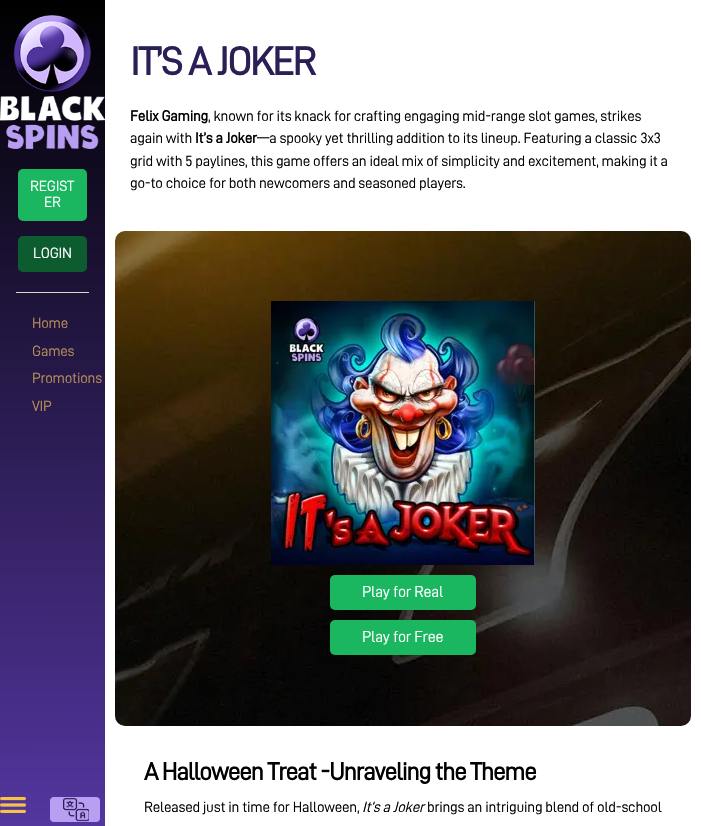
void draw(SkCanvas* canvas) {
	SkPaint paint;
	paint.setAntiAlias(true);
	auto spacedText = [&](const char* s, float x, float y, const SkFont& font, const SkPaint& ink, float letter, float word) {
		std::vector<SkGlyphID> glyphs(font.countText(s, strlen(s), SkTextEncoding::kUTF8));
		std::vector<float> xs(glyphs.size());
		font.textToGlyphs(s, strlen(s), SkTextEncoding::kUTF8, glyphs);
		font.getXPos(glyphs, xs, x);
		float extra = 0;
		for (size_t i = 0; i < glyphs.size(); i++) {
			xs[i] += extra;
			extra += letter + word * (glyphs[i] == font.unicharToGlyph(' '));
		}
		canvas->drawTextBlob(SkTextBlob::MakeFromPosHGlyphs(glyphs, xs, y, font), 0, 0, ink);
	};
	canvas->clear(0xffffffff);
	{
		const SkColor colors[] = {0xff000000, 0xff53369f};
		const float stops[] = {0, 1};
		const SkPoint ends[] = {{52, 0}, {53, 826}};
		paint.setShader(SkGradientShader::MakeLinear(ends, colors, stops, 2, SkTileMode::kClamp));
		paint.setAlpha(255);
	}
	canvas->drawRect(SkRect::MakeXYWH(0, 0, 105, 826), paint);
	canvas->drawImageRect(SkImages::DeferredFromEncodedData(SkData::MakeFromFileName("img1.png")), SkRect::MakeXYWH(0, 15, 105, 134), SkSamplingOptions());
	paint.setShader(nullptr);
	paint.setColor(0xff1ab760);
	canvas->drawRoundRect(SkRect::MakeXYWH(18, 169, 69, 52), 5, 5, paint);
	SkFont f1(fontMgr->matchFamilyStyle("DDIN", SkFontStyle::Normal()), 15);
	f1.setSubpixel(true);
	paint.setColor(0xffffffff);
	spacedText("REGIST", 30, 191, f1, paint, -0.23, 0);
	spacedText("ER", 44, 207, f1, paint, -0.23, 0);
	paint.setColor(0xff0d5c30);
	canvas->drawRoundRect(SkRect::MakeXYWH(18, 236, 69, 36), 5, 5, paint);
	paint.setColor(0xffffffff);
	spacedText("LOGIN", 33, 258, f1, paint, -0.23, 0);
	paint.setColor(0xffdcd7ca);
	canvas->drawRect(SkRect::MakeXYWH(16, 292, 73, 1), paint);
	paint.setColor(0xffb68e5a);
	spacedText("Home", 32, 328, f1, paint, -0.23, 0);
	spacedText("Games", 32, 356, f1, paint, -0.23, 0);
	spacedText("Promotions", 32, 383, f1, paint, -0.23, 0);
	spacedText("VIP", 32, 411, f1, paint, -0.23, 0);
	canvas->drawImageRect(SkImages::DeferredFromEncodedData(SkData::MakeFromFileName("img2.png")), SkRect::MakeXYWH(0, 797, 26, 16), SkSamplingOptions());
	canvas->drawImageRect(SkImages::DeferredFromEncodedData(SkData::MakeFromFileName("img3.png")), SkRect::MakeXYWH(50, 797, 50, 25), SkSamplingOptions());
	SkFont f2(fontMgr->matchFamilyStyle("DDIN", SkFontStyle::Bold()), 40);
	f2.setSubpixel(true);
	paint.setColor(0xff2b1f56);
	spacedText("IT’S A JOKER", 130, 75, f2, paint, -1.7, 0);
	SkFont f3(fontMgr->matchFamilyStyle("DDIN", SkFontStyle::Bold()), 15);
	f3.setSubpixel(true);
	paint.setColor(0xff000000);
	spacedText("Felix Gaming", 130, 121, f3, paint, -0.23, 0);
	spacedText(", known for its knack for crafting engaging mid-range slot games, strikes", 208, 121, f1, paint, -0.23, 0);
	spacedText("again with", 130, 143, f1, paint, -0.23, 0);
	spacedText("It’s a Joker", 195, 143, f3, paint, -0.23, 0);
	spacedText("—a spooky yet thrilling addition to its lineup. Featuring a classic 3x3", 257, 143, f1, paint, -0.23, 0);
	spacedText("grid with 5 paylines, this game offers an ideal mix of simplicity and excitement, making it a", 130, 166, f1, paint, -0.23, 0);
	spacedText("go-to choice for both newcomers and seasoned players.", 130, 188, f1, paint, -0.23, 0);
	canvas->drawImageRect(SkImages::DeferredFromEncodedData(SkData::MakeFromFileName("img4.png")), SkRect::MakeXYWH(115, 231, 576, 495), SkSamplingOptions());
	canvas->drawImageRect(SkImages::DeferredFromEncodedData(SkData::MakeFromFileName("img5.png")), SkRect::MakeXYWH(271, 301, 264, 264), SkSamplingOptions());
	paint.setColor(0xff1ab760);
	canvas->drawRoundRect(SkRect::MakeXYWH(330, 575, 146, 35), 5, 5, paint);
	SkFont f4(fontMgr->matchFamilyStyle("DDIN", SkFontStyle::Normal()), 16);
	f4.setSubpixel(true);
	paint.setColor(0xffffffff);
	spacedText("Play for Real", 362, 597, f4, paint, -0.23, 0);
	paint.setColor(0xff1ab760);
	canvas->drawRoundRect(SkRect::MakeXYWH(330, 620, 146, 35), 5, 5, paint);
	paint.setColor(0xffffffff);
	spacedText("Play for Free", 362, 642, f4, paint, -0.23, 0);
	SkFont f5(fontMgr->matchFamilyStyle("DDIN", SkFontStyle::Bold()), 25);
	f5.setSubpixel(true);
	paint.setColor(0xff000000);
	spacedText("A Halloween Treat -Unraveling the Theme", 144, 780, f5, paint, -1.05, 0);
	spacedText("Released just in time for Halloween,", 144, 812, f1, paint, -0.23, 0);
	SkFont f6(fontMgr->matchFamilyStyle("DDIN", SkFontStyle::Italic()), 15);
	f6.setSubpixel(true);
	spacedText("It’s a Joker", 362, 812, f6, paint, -0.23, 0);
	spacedText("brings an intriguing blend of old-school", 427, 812, f1, paint, -0.23, 0);
}
